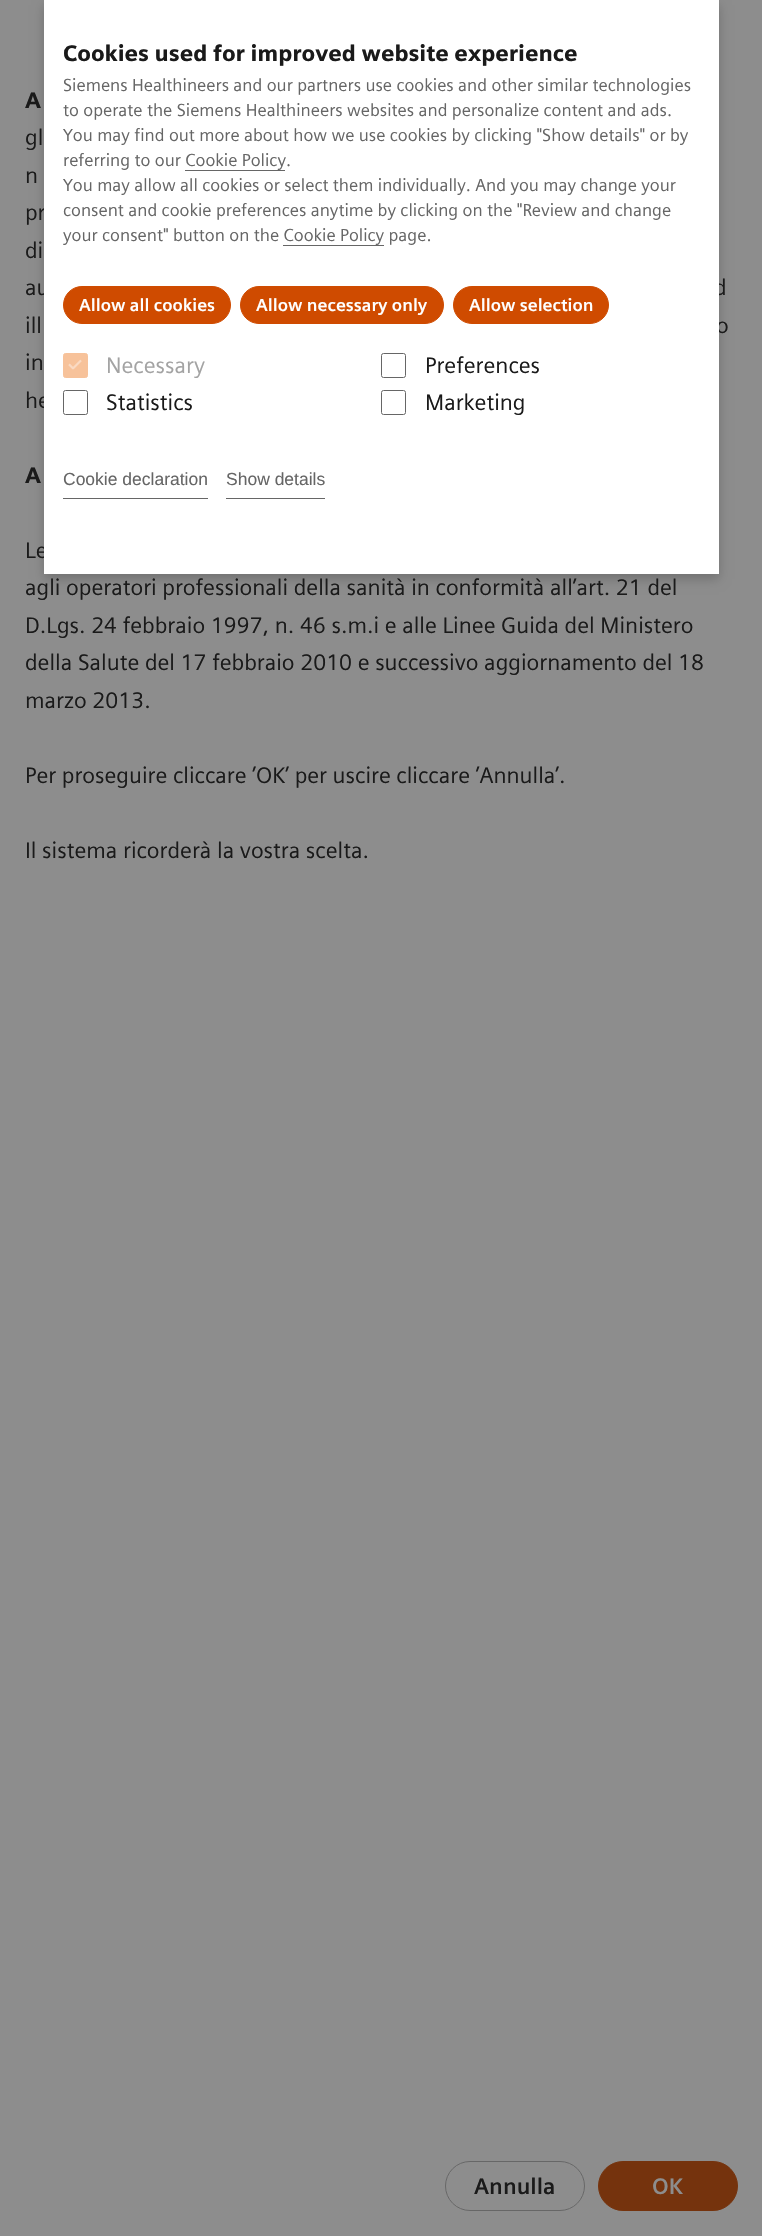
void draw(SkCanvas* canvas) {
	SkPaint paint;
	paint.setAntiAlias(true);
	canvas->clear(0xff8d8d8d);
	paint.setColor(0x33000000);
	paint.setMaskFilter(SkMaskFilter::MakeBlur(kNormal_SkBlurStyle, 5.5));
	canvas->drawRect(SkRect::MakeXYWH(44, 5, 675, 574), paint);
	paint.setMaskFilter(nullptr);
	SkFont f1(fontMgr->matchFamilyStyle("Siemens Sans", SkFontStyle::Normal()), 22.5);
	f1.setSubpixel(true);
	paint.setColor(0xff1a1a1a);
	canvas->drawString("pr", 25, 220, f1, paint);
	canvas->drawString("au", 25, 295, f1, paint);
	canvas->drawString("d", 714, 295, f1, paint);
	canvas->drawString("o", 716, 333, f1, paint);
	canvas->drawString("he", 25, 408, f1, paint);
	canvas->drawString("Le", 25, 558, f1, paint);
	paint.setColor(0xffffffff);
	canvas->drawRect(SkRect::MakeXYWH(44, 0, 675, 574), paint);
	SkFont f2(fontMgr->matchFamilyStyle("Siemens Sans", SkFontStyle(900, SkFontStyle::kNormal_Width, SkFontStyle::kUpright_Slant)), 22.5);
	f2.setSubpixel(true);
	paint.setColor(0xff1a1a1a);
	canvas->drawString("Cookies used for improved website experience", 63, 61, f2, paint);
	SkFont f3(fontMgr->matchFamilyStyle("Siemens Sans", SkFontStyle::Normal()), 17.5);
	f3.setSubpixel(true);
	paint.setColor(0xff666666);
	canvas->drawString("Siemens Healthineers and our partners use cookies and other similar technologies", 63, 91, f3, paint);
	canvas->drawString("to operate the Siemens Healthineers websites and personalize content and ads.", 63, 116, f3, paint);
	canvas->drawString("You may find out more about how we use cookies by clicking \"Show details\" or by", 63, 141, f3, paint);
	canvas->drawString("referring to our Cookie Policy.", 63, 166, f3, paint);
	canvas->drawRect(SkRect::MakeXYWH(185, 170, 100, 1), paint);
	canvas->drawString("You may allow all cookies or select them individually. And you may change your", 63, 191, f3, paint);
	canvas->drawString("consent and cookie preferences anytime by clicking on the \"Review and change", 63, 216, f3, paint);
	canvas->drawString("your consent\" button on the Cookie Policy page.", 63, 241, f3, paint);
	canvas->drawRect(SkRect::MakeXYWH(283, 245, 101, 1), paint);
	paint.setColor(0xffcf4b00);
	canvas->drawRoundRect(SkRect::MakeXYWH(63.5, 286.5, 167, 37), 18.5, 18.5, paint);
	paint.setStroke(true);
	paint.setStrokeWidth(1);
	canvas->drawRoundRect(SkRect::MakeXYWH(63.5, 286.5, 167, 37), 18.5, 18.5, paint);
	SkFont f4(fontMgr->matchFamilyStyle("Siemens Sans", SkFontStyle::Bold()), 17.5);
	f4.setSubpixel(true);
	paint.setStroke(false);
	paint.setColor(0xffffffff);
	canvas->drawString("Allow all cookies", 79, 311, f4, paint);
	paint.setColor(0xffcf4b00);
	canvas->drawRoundRect(SkRect::MakeXYWH(240.5, 286.5, 203, 37), 18.5, 18.5, paint);
	paint.setStroke(true);
	canvas->drawRoundRect(SkRect::MakeXYWH(240.5, 286.5, 203, 37), 18.5, 18.5, paint);
	paint.setStroke(false);
	paint.setColor(0xffffffff);
	canvas->drawString("Allow necessary only", 256, 311, f4, paint);
	paint.setColor(0xffcf4b00);
	canvas->drawRoundRect(SkRect::MakeXYWH(453.5, 286.5, 155, 37), 18.5, 18.5, paint);
	paint.setStroke(true);
	canvas->drawRoundRect(SkRect::MakeXYWH(453.5, 286.5, 155, 37), 18.5, 18.5, paint);
	paint.setStroke(false);
	paint.setColor(0xffffffff);
	canvas->drawString("Allow selection", 469, 311, f4, paint);
	paint.setColor(0xfff7c29a);
	canvas->drawRoundRect(SkRect::MakeXYWH(63.5, 353.5, 24, 24), 2, 2, paint);
	paint.setStroke(true);
	canvas->drawRoundRect(SkRect::MakeXYWH(63.5, 353.5, 24, 24), 2, 2, paint);
	canvas->drawImageRect(SkImages::DeferredFromEncodedData(SkData::MakeFromFileName("img1.png")), SkRect::MakeXYWH(68, 359, 14, 11), SkSamplingOptions());
	paint.setStroke(false);
	paint.setColor(0xffa3a3a3);
	canvas->drawString("Necessary", 106, 373, f1, paint);
	paint.setStroke(true);
	paint.setColor(0xff666666);
	canvas->drawRoundRect(SkRect::MakeXYWH(381.5, 353.5, 24, 24), 2, 2, paint);
	paint.setStroke(false);
	paint.setColor(0xff1a1a1a);
	canvas->drawString("Preferences", 425, 373, f1, paint);
	paint.setStroke(true);
	paint.setColor(0xff666666);
	canvas->drawRoundRect(SkRect::MakeXYWH(63.5, 390.5, 24, 24), 2, 2, paint);
	paint.setStroke(false);
	paint.setColor(0xff1a1a1a);
	canvas->drawString("Statistics", 106, 410, f1, paint);
	paint.setStroke(true);
	paint.setColor(0xff666666);
	canvas->drawRoundRect(SkRect::MakeXYWH(381.5, 390.5, 24, 24), 2, 2, paint);
	paint.setStroke(false);
	paint.setColor(0xff1a1a1a);
	canvas->drawString("Marketing", 425, 410, f1, paint);
	paint.setColor(0xff666666);
	canvas->drawRect(SkRect::MakeXYWH(63, 498, 145, 1), paint);
	SkFont f5(fontMgr->matchFamilyStyle("Liberation Sans", SkFontStyle::Normal()), 17.5);
	f5.setSubpixel(true);
	canvas->drawString("Cookie declaration", 63, 485, f5, paint);
	canvas->drawRect(SkRect::MakeXYWH(226, 498, 99, 1), paint);
	canvas->drawString("Show details", 226, 485, f5, paint);
	paint.setColor(0xff1a1a1a);
	canvas->drawString("A", 25, 108, f2, paint);
	canvas->drawString("gl", 25, 145, f1, paint);
	canvas->drawString("n", 25, 183, f1, paint);
	canvas->drawString("di", 25, 258, f1, paint);
	canvas->drawString("ill", 25, 333, f1, paint);
	canvas->drawString("in", 25, 370, f1, paint);
	canvas->drawString("A", 25, 483, f2, paint);
	canvas->drawString("agli operatori professionali della sanità in conformità all’art. 21 del", 25, 595, f1, paint);
	canvas->drawString("D.Lgs. 24 febbraio 1997, n. 46 s.m.i e alle Linee Guida del Ministero", 25, 633, f1, paint);
	canvas->drawString("della Salute del 17 febbraio 2010 e successivo aggiornamento del 18", 25, 670, f1, paint);
	canvas->drawString("marzo 2013.", 25, 708, f1, paint);
	canvas->drawString("Per proseguire cliccare ’OK’ per uscire cliccare ’Annulla’.", 25, 783, f1, paint);
	canvas->drawString("Il sistema ricorderà la vostra scelta.", 25, 858, f1, paint);
	paint.setStroke(true);
	paint.setColor(0xff676767);
	canvas->drawRoundRect(SkRect::MakeXYWH(445.5, 2161.5, 139, 49), 24.5, 24.5, paint);
	SkFont f6(fontMgr->matchFamilyStyle("Siemens Sans", SkFontStyle::Bold()), 22.5);
	f6.setSubpixel(true);
	paint.setStroke(false);
	paint.setColor(0xff1a1a1a);
	canvas->drawString("Annulla", 474, 2194, f6, paint);
	paint.setColor(0xff75330d);
	canvas->drawRoundRect(SkRect::MakeXYWH(598.5, 2161.5, 139, 49), 24.5, 24.5, paint);
	paint.setStroke(true);
	canvas->drawRoundRect(SkRect::MakeXYWH(598.5, 2161.5, 139, 49), 24.5, 24.5, paint);
	paint.setStroke(false);
	paint.setColor(0xff8d8d8d);
	canvas->drawString("OK", 652, 2194, f6, paint);
}
